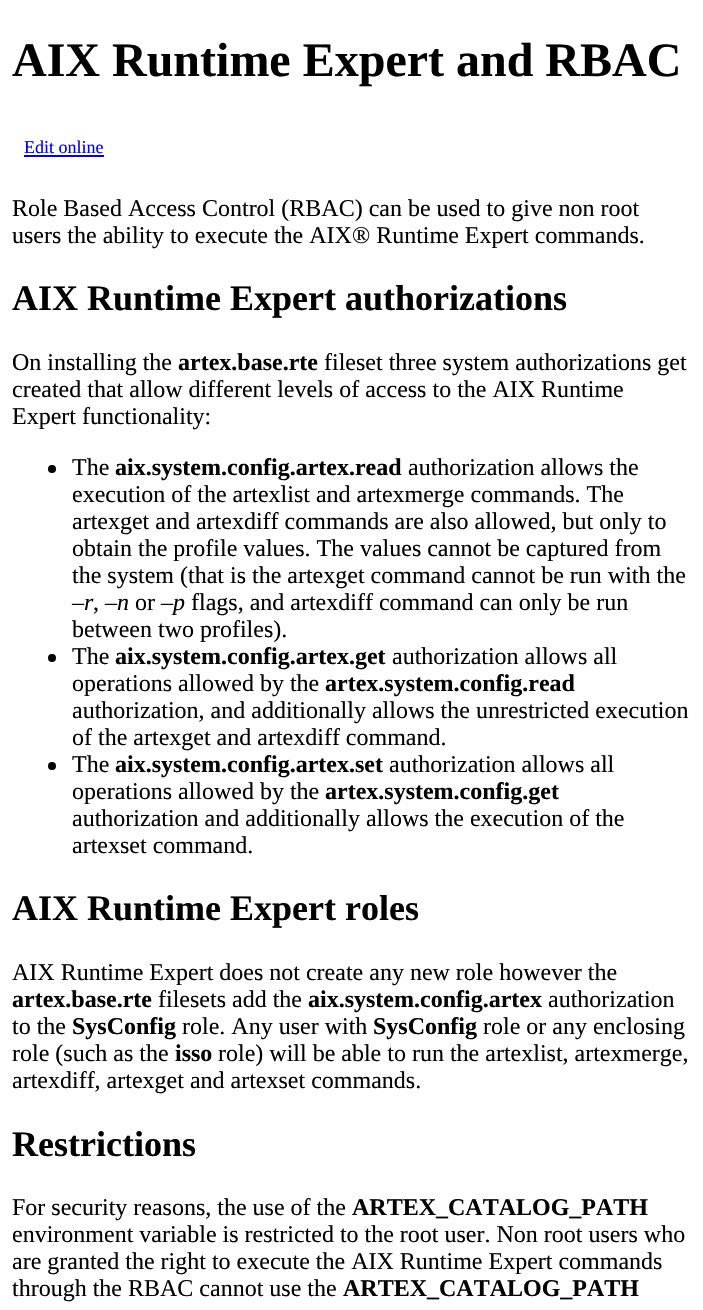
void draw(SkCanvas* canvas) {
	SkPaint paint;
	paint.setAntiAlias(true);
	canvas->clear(0xffffffff);
	SkFont f1(fontMgr->matchFamilyStyle("Liberation Serif", SkFontStyle::Bold()), 48);
	f1.setSubpixel(true);
	paint.setColor(0xff000000);
	canvas->drawString("AIX Runtime Expert and RBAC", 12, 76, f1, paint);
	SkFont f2(fontMgr->matchFamilyStyle("Liberation Serif", SkFontStyle::Normal()), 18);
	f2.setSubpixel(true);
	paint.setColor(0xff0000ee);
	canvas->drawString("Edit online", 24, 153, f2, paint);
	canvas->drawRect(SkRect::MakeXYWH(24, 155, 80, 2), paint);
	SkFont f3(fontMgr->matchFamilyStyle("Liberation Serif", SkFontStyle::Normal()), 24);
	f3.setSubpixel(true);
	paint.setColor(0xff000000);
	canvas->drawString("Role Based Access Control (RBAC) can be used to give non root", 12, 216, f3, paint);
	canvas->drawString("users the ability to execute the AIX® Runtime Expert commands.", 12, 243, f3, paint);
	SkFont f4(fontMgr->matchFamilyStyle("Liberation Serif", SkFontStyle::Bold()), 36);
	f4.setSubpixel(true);
	canvas->drawString("AIX Runtime Expert authorizations", 12, 310, f4, paint);
	canvas->drawString("On installing the", 12, 370, f3, paint);
	SkFont f5(fontMgr->matchFamilyStyle("Liberation Serif", SkFontStyle::Bold()), 24);
	f5.setSubpixel(true);
	canvas->drawString("artex.base.rte", 178, 370, f5, paint);
	canvas->drawString("fileset three system authorizations get", 324, 370, f3, paint);
	canvas->drawString("created that allow different levels of access to the AIX Runtime", 12, 397, f3, paint);
	canvas->drawString("Expert functionality:", 12, 424, f3, paint);
	canvas->drawCircle(52, 469, 4, paint);
	canvas->drawString("The", 72, 475, f3, paint);
	canvas->drawString("aix.system.config.artex.read", 115, 475, f5, paint);
	canvas->drawString("authorization allows the", 408, 475, f3, paint);
	canvas->drawString("execution of the artexlist and artexmerge commands. The", 72, 502, f3, paint);
	canvas->drawString("artexget and artexdiff commands are also allowed, but only to", 72, 529, f3, paint);
	canvas->drawString("obtain the profile values. The values cannot be captured from", 72, 556, f3, paint);
	canvas->drawString("the system (that is the artexget command cannot be run with the", 72, 583, f3, paint);
	SkFont f6(fontMgr->matchFamilyStyle("Liberation Serif", SkFontStyle::Italic()), 24);
	f6.setSubpixel(true);
	canvas->drawString("–r", 72, 610, f6, paint);
	canvas->drawString(",", 93, 610, f3, paint);
	canvas->drawString("–n", 105, 610, f6, paint);
	canvas->drawString("or", 135, 610, f3, paint);
	canvas->drawString("–p", 161, 610, f6, paint);
	canvas->drawString("flags, and artexdiff command can only be run", 191, 610, f3, paint);
	canvas->drawString("between two profiles).", 72, 637, f3, paint);
	canvas->drawCircle(52, 658, 4, paint);
	canvas->drawString("The", 72, 664, f3, paint);
	canvas->drawString("aix.system.config.artex.get", 115, 664, f5, paint);
	canvas->drawString("authorization allows all", 392, 664, f3, paint);
	canvas->drawString("operations allowed by the", 72, 691, f3, paint);
	canvas->drawString("artex.system.config.read", 325, 691, f5, paint);
	canvas->drawString("authorization, and additionally allows the unrestricted execution", 72, 718, f3, paint);
	canvas->drawString("of the artexget and artexdiff command.", 72, 745, f3, paint);
	canvas->drawCircle(52, 766, 4, paint);
	canvas->drawString("The", 72, 772, f3, paint);
	canvas->drawString("aix.system.config.artex.set", 115, 772, f5, paint);
	canvas->drawString("authorization allows all", 389, 772, f3, paint);
	canvas->drawString("operations allowed by the", 72, 799, f3, paint);
	canvas->drawString("artex.system.config.get", 325, 799, f5, paint);
	canvas->drawString("authorization and additionally allows the execution of the", 72, 826, f3, paint);
	canvas->drawString("artexset command.", 72, 853, f3, paint);
	canvas->drawString("AIX Runtime Expert roles", 12, 920, f4, paint);
	canvas->drawString("AIX Runtime Expert does not create any new role however the", 12, 980, f3, paint);
	canvas->drawString("artex.base.rte", 12, 1007, f5, paint);
	canvas->drawString("filesets add the", 158, 1007, f3, paint);
	canvas->drawString("aix.system.config.artex", 308, 1007, f5, paint);
	canvas->drawString("authorization", 548, 1007, f3, paint);
	canvas->drawString("to the", 12, 1034, f3, paint);
	canvas->drawString("SysConfig", 72, 1034, f5, paint);
	canvas->drawString("role. Any user with", 182, 1034, f3, paint);
	canvas->drawString("SysConfig", 373, 1034, f5, paint);
	canvas->drawString("role or any enclosing", 483, 1034, f3, paint);
	canvas->drawString("role (such as the", 12, 1061, f3, paint);
	canvas->drawString("isso", 175, 1061, f5, paint);
	canvas->drawString("role) will be able to run the artexlist, artexmerge,", 218, 1061, f3, paint);
	canvas->drawString("artexdiff, artexget and artexset commands.", 12, 1088, f3, paint);
	canvas->drawString("Restrictions", 12, 1156, f4, paint);
	canvas->drawString("For security reasons, the use of the", 12, 1215, f3, paint);
	canvas->drawString("ARTEX_CATALOG_PATH", 352, 1215, f5, paint);
	canvas->drawString("environment variable is restricted to the root user. Non root users who", 12, 1242, f3, paint);
	canvas->drawString("are granted the right to execute the AIX Runtime Expert commands", 12, 1269, f3, paint);
	canvas->drawString("through the RBAC cannot use the", 12, 1296, f3, paint);
	canvas->drawString("ARTEX_CATALOG_PATH", 343, 1296, f5, paint);
}
